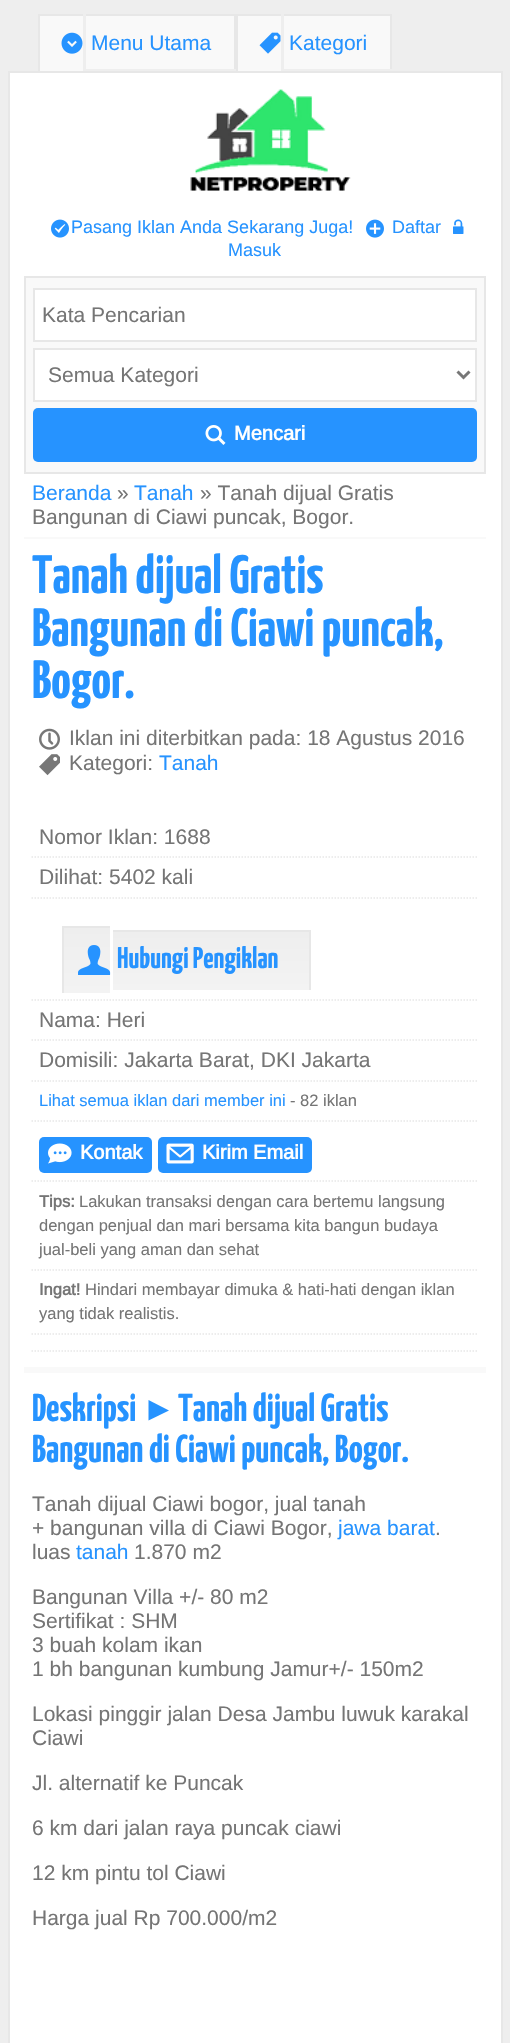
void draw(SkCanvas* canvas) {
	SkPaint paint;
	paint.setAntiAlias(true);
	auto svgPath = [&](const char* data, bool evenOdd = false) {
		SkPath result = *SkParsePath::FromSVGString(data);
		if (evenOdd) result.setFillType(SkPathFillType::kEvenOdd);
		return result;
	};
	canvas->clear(0xffeeeeee);
	paint.setColor(0xfff9f9f9);
	canvas->drawRect(SkRect::MakeXYWH(40, 16, 43, 55), paint);
	canvas->drawImageRect(SkImages::DeferredFromEncodedData(SkData::MakeFromFileName("img1.png")), SkRect::MakeXYWH(61, 32, 22, 22), SkSamplingOptions());
	canvas->drawRect(SkRect::MakeXYWH(86, 16, 148, 53), paint);
	SkFont f1(fontMgr->matchFamilyStyle("Arimo", SkFontStyle::Normal()), 21);
	f1.setSubpixel(true);
	paint.setColor(0xff2693ff);
	canvas->drawString("Menu Utama", 91, 50, f1, paint);
	paint.setColor(0xffe7e7e7);
	canvas->drawRect(SkRect::MakeXYWH(38, 14, 45, 2), paint);
	canvas->drawRect(SkRect::MakeXYWH(38, 14, 2, 57), paint);
	canvas->drawRect(SkRect::MakeXYWH(86, 14, 195, 2), paint);
	canvas->drawRect(SkRect::MakeXYWH(234, 14, 2, 55), paint);
	paint.setColor(0xfff9f9f9);
	canvas->drawRect(SkRect::MakeXYWH(238, 16, 43, 55), paint);
	canvas->drawImageRect(SkImages::DeferredFromEncodedData(SkData::MakeFromFileName("img2.png")), SkRect::MakeXYWH(259, 32, 22, 22), SkSamplingOptions());
	canvas->drawRect(SkRect::MakeXYWH(284, 16, 106, 53), paint);
	paint.setColor(0xff2693ff);
	canvas->drawString("Kategori", 289, 50, f1, paint);
	paint.setColor(0xffe7e7e7);
	canvas->drawRect(SkRect::MakeXYWH(236, 14, 2, 57), paint);
	canvas->drawRect(SkRect::MakeXYWH(284, 14, 108, 2), paint);
	canvas->drawRect(SkRect::MakeXYWH(390, 14, 2, 55), paint);
	paint.setColor(0xffffffff);
	canvas->drawRect(SkRect::MakeXYWH(10, 73, 491, 1970), paint);
	paint.setColor(0xffe7e7e7);
	canvas->drawRect(SkRect::MakeXYWH(8, 71, 495, 2), paint);
	canvas->drawRect(SkRect::MakeXYWH(501, 71, 2, 1972), paint);
	canvas->drawRect(SkRect::MakeXYWH(8, 71, 2, 1972), paint);
	canvas->drawImageRect(SkImages::DeferredFromEncodedData(SkData::MakeFromFileName("img3.png")), SkRect::MakeXYWH(190, 89, 161, 102), SkSamplingOptions());
	canvas->drawImageRect(SkImages::DeferredFromEncodedData(SkData::MakeFromFileName("img4.png")), SkRect::MakeXYWH(51, 219, 18, 19), SkSamplingOptions());
	SkFont f2(fontMgr->matchFamilyStyle("Arimo", SkFontStyle::Normal()), 18);
	f2.setSubpixel(true);
	paint.setColor(0xff2693ff);
	canvas->drawString("Pasang Iklan Anda Sekarang Juga!", 71, 233, f2, paint);
	canvas->drawImageRect(SkImages::DeferredFromEncodedData(SkData::MakeFromFileName("img5.png")), SkRect::MakeXYWH(366, 219, 18, 19), SkSamplingOptions());
	canvas->drawString("Daftar", 392, 233, f2, paint);
	canvas->drawImageRect(SkImages::DeferredFromEncodedData(SkData::MakeFromFileName("img6.png")), SkRect::MakeXYWH(453, 219, 11, 15), SkSamplingOptions());
	canvas->drawString("Masuk", 228, 256, f2, paint);
	paint.setColor(0xfff9f9f9);
	canvas->drawRect(SkRect::MakeXYWH(25, 277, 460, 196), paint);
	paint.setStroke(true);
	paint.setStrokeWidth(2);
	paint.setColor(0xffe7e7e7);
	canvas->drawRect(SkRect::MakeXYWH(25, 277, 460, 196), paint);
	paint.setStroke(false);
	paint.setColor(0xffffffff);
	canvas->drawRect(SkRect::MakeXYWH(34, 289, 442, 52), paint);
	paint.setStroke(true);
	paint.setColor(0xffe7e7e7);
	canvas->drawRect(SkRect::MakeXYWH(34, 289, 442, 52), paint);
	paint.setStroke(false);
	paint.setColor(0xff757575);
	canvas->drawString("Kata Pencarian", 42, 322, f1, paint);
	paint.setColor(0xffffffff);
	canvas->drawRect(SkRect::MakeXYWH(34, 349, 442, 52), paint);
	paint.setStroke(true);
	paint.setColor(0xffe7e7e7);
	canvas->drawRect(SkRect::MakeXYWH(34, 349, 442, 52), paint);
	paint.setStrokeWidth(3);
	paint.setColor(0xff777777);
	canvas->drawPath(svgPath("M457.5 371.5L463.5 377.5L469.5 371.5"), paint);
	paint.setStroke(false);
	paint.setColor(0xff757575);
	canvas->drawString("Semua Kategori", 48, 382, f1, paint);
	paint.setColor(0xff2693ff);
	canvas->drawRoundRect(SkRect::MakeXYWH(33, 408, 444, 54), 5, 5, paint);
	canvas->drawImageRect(SkImages::DeferredFromEncodedData(SkData::MakeFromFileName("img7.png")), SkRect::MakeXYWH(205, 425, 21, 20), SkSamplingOptions());
	SkFont f3(fontMgr->matchFamilyStyle("Arimo", SkFontStyle::Bold()), 20);
	f3.setSubpixel(true);
	paint.setColor(0xffffffff);
	canvas->drawString("Mencari", 234, 440, f3, paint);
	paint.setColor(0xfff9f9f9);
	canvas->drawRect(SkRect::MakeXYWH(24, 537, 462, 2), paint);
	paint.setColor(0xff2693ff);
	canvas->drawString("Beranda", 32, 500, f1, paint);
	paint.setColor(0xff757575);
	canvas->drawString("»", 117, 500, f1, paint);
	paint.setColor(0xff2693ff);
	canvas->drawString("Tanah", 134, 500, f1, paint);
	paint.setColor(0xff757575);
	canvas->drawString("» Tanah dijual Gratis", 200, 500, f1, paint);
	canvas->drawString("Bangunan di Ciawi puncak, Bogor.", 32, 524, f1, paint);
	SkFont f4(fontMgr->matchFamilyStyle("Yanone Kaffeesatz", SkFontStyle::Bold()), 54);
	f4.setSubpixel(true);
	paint.setColor(0xff2693ff);
	canvas->drawString("Tanah dijual Gratis", 32, 593, f4, paint);
	canvas->drawString("Bangunan di Ciawi puncak,", 32, 646, f4, paint);
	canvas->drawString("Bogor.", 32, 698, f4, paint);
	canvas->drawImageRect(SkImages::DeferredFromEncodedData(SkData::MakeFromFileName("img8.png")), SkRect::MakeXYWH(39, 728, 21, 22), SkSamplingOptions());
	paint.setColor(0xff757575);
	canvas->drawString("Iklan ini diterbitkan pada: 18 Agustus 2016", 69, 745, f1, paint);
	canvas->drawImageRect(SkImages::DeferredFromEncodedData(SkData::MakeFromFileName("img9.png")), SkRect::MakeXYWH(39, 754, 21, 22), SkSamplingOptions());
	canvas->drawString("Kategori:", 69, 770, f1, paint);
	paint.setColor(0xff2693ff);
	canvas->drawString("Tanah", 159, 770, f1, paint);
	paint.setStroke(true);
	paint.setStrokeWidth(1.5);
	paint.setColor(0xffe7e7e7);
	paint.setPathEffect(SkDashPathEffect::Make({{1.5f, 1.5f}}, 0));
	canvas->drawPath(svgPath("M31.5 857H478.5"), paint);
	paint.setPathEffect(nullptr);
	paint.setStroke(false);
	paint.setColor(0xff757575);
	canvas->drawString("Nomor Iklan: 1688", 39, 844, f1, paint);
	paint.setStroke(true);
	paint.setColor(0xffe7e7e7);
	paint.setPathEffect(SkDashPathEffect::Make({{1.5f, 1.5f}}, 0));
	canvas->drawPath(svgPath("M31.5 898H478.5"), paint);
	paint.setPathEffect(nullptr);
	paint.setStroke(false);
	paint.setColor(0xff757575);
	canvas->drawString("Dilihat: 5402 kali", 39, 884, f1, paint);
	paint.setStroke(true);
	paint.setColor(0xffe7e7e7);
	paint.setPathEffect(SkDashPathEffect::Make({{1.5f, 1.5f}}, 0));
	canvas->drawPath(svgPath("M31.5 1000H478.5"), paint);
	paint.setPathEffect(nullptr);
	paint.setStroke(false);
	{
		const SkColor colors[] = {0xffeeeeee, 0xfff3f3f3};
		const float stops[] = {0, 1};
		const SkPoint ends[] = {{86, 927}, {86, 993}};
		paint.setShader(SkGradientShader::MakeLinear(ends, colors, stops, 2, SkTileMode::kClamp));
		paint.setAlpha(255);
	}
	canvas->drawRect(SkRect::MakeXYWH(64, 928, 46, 65), paint);
	canvas->drawImageRect(SkImages::DeferredFromEncodedData(SkData::MakeFromFileName("img10.png")), SkRect::MakeXYWH(78, 945, 33, 30), SkSamplingOptions());
	{
		const SkColor colors[] = {0xffeeeeee, 0xfff3f3f3};
		const float stops[] = {0, 1};
		const SkPoint ends[] = {{211, 932}, {211, 990}};
		paint.setShader(SkGradientShader::MakeLinear(ends, colors, stops, 2, SkTileMode::kClamp));
		paint.setAlpha(255);
	}
	canvas->drawRect(SkRect::MakeXYWH(113, 932, 196, 58), paint);
	SkFont f5(fontMgr->matchFamilyStyle("Yanone Kaffeesatz", SkFontStyle::Bold()), 30);
	f5.setSubpixel(true);
	paint.setShader(nullptr);
	paint.setColor(0xff2693ff);
	canvas->drawString("Hubungi Pengiklan", 117, 968, f5, paint);
	paint.setColor(0xffe7e7e7);
	canvas->drawRect(SkRect::MakeXYWH(62, 926, 48, 2), paint);
	canvas->drawRect(SkRect::MakeXYWH(62, 926, 2, 67), paint);
	canvas->drawRect(SkRect::MakeXYWH(113, 930, 198, 2), paint);
	canvas->drawRect(SkRect::MakeXYWH(309, 930, 2, 60), paint);
	paint.setStroke(true);
	paint.setPathEffect(SkDashPathEffect::Make({{1.5f, 1.5f}}, 0));
	canvas->drawPath(svgPath("M31.5 1040H478.5"), paint);
	paint.setPathEffect(nullptr);
	paint.setStroke(false);
	paint.setColor(0xff757575);
	canvas->drawString("Nama: Heri", 39, 1027, f1, paint);
	paint.setStroke(true);
	paint.setColor(0xffe7e7e7);
	paint.setPathEffect(SkDashPathEffect::Make({{1.5f, 1.5f}}, 0));
	canvas->drawPath(svgPath("M31.5 1081H478.5"), paint);
	paint.setPathEffect(nullptr);
	paint.setStroke(false);
	paint.setColor(0xff757575);
	canvas->drawString("Domisili: Jakarta Barat, DKI Jakarta", 39, 1067, f1, paint);
	paint.setStroke(true);
	paint.setColor(0xffe7e7e7);
	paint.setPathEffect(SkDashPathEffect::Make({{1.5f, 1.5f}}, 0));
	canvas->drawPath(svgPath("M31.5 1121H478.5"), paint);
	paint.setPathEffect(nullptr);
	SkFont f6(fontMgr->matchFamilyStyle("Arimo", SkFontStyle::Normal()), 16.5);
	f6.setSubpixel(true);
	paint.setStroke(false);
	paint.setColor(0xff2693ff);
	canvas->drawString("Lihat semua iklan dari member ini", 39, 1106, f6, paint);
	paint.setColor(0xff757575);
	canvas->drawString("- 82 iklan", 290, 1106, f6, paint);
	paint.setStroke(true);
	paint.setColor(0xffe7e7e7);
	paint.setPathEffect(SkDashPathEffect::Make({{1.5f, 1.5f}}, 0));
	canvas->drawPath(svgPath("M31.5 1181H478.5"), paint);
	paint.setPathEffect(nullptr);
	paint.setStroke(false);
	paint.setColor(0xff2693ff);
	canvas->drawRoundRect(SkRect::MakeXYWH(39, 1137, 113, 36), 5, 5, paint);
	canvas->drawImageRect(SkImages::DeferredFromEncodedData(SkData::MakeFromFileName("img11.png")), SkRect::MakeXYWH(48, 1143, 24, 21), SkSamplingOptions());
	paint.setColor(0xffffffff);
	canvas->drawString("Kontak", 80, 1159, f3, paint);
	paint.setColor(0xff2693ff);
	canvas->drawRoundRect(SkRect::MakeXYWH(158, 1137, 154, 36), 5, 5, paint);
	canvas->drawImageRect(SkImages::DeferredFromEncodedData(SkData::MakeFromFileName("img12.png")), SkRect::MakeXYWH(166, 1143, 28, 21), SkSamplingOptions());
	paint.setColor(0xffffffff);
	canvas->drawString("Kirim Email", 202, 1159, f3, paint);
	paint.setStroke(true);
	paint.setColor(0xffe7e7e7);
	paint.setPathEffect(SkDashPathEffect::Make({{1.5f, 1.5f}}, 0));
	canvas->drawPath(svgPath("M31.5 1270H478.5"), paint);
	paint.setPathEffect(nullptr);
	SkFont f7(fontMgr->matchFamilyStyle("Arimo", SkFontStyle::Bold()), 16.5);
	f7.setSubpixel(true);
	paint.setStroke(false);
	paint.setColor(0xff757575);
	canvas->drawString("Tips:", 39, 1207, f7, paint);
	canvas->drawString("Lakukan transaksi dengan cara bertemu langsung", 79, 1207, f6, paint);
	canvas->drawString("dengan penjual dan mari bersama kita bangun budaya", 39, 1231, f6, paint);
	canvas->drawString("jual-beli yang aman dan sehat", 39, 1255, f6, paint);
	paint.setStroke(true);
	paint.setColor(0xffe7e7e7);
	paint.setPathEffect(SkDashPathEffect::Make({{1.5f, 1.5f}}, 0));
	canvas->drawPath(svgPath("M31.5 1334H478.5"), paint);
	paint.setPathEffect(nullptr);
	paint.setStroke(false);
	paint.setColor(0xff757575);
	canvas->drawString("Ingat!", 39, 1295, f7, paint);
	canvas->drawString("Hindari membayar dimuka & hati-hati dengan iklan", 85, 1295, f6, paint);
	canvas->drawString("yang tidak realistis.", 39, 1319, f6, paint);
	paint.setStroke(true);
	paint.setColor(0xffe7e7e7);
	paint.setPathEffect(SkDashPathEffect::Make({{1.5f, 1.5f}}, 0));
	canvas->drawPath(svgPath("M31.5 1351H478.5"), paint);
	paint.setPathEffect(nullptr);
	paint.setStroke(false);
	paint.setColor(0xfff9f9f9);
	canvas->drawRect(SkRect::MakeXYWH(24, 1367, 462, 6), paint);
	SkFont f8(fontMgr->matchFamilyStyle("Yanone Kaffeesatz", SkFontStyle::Bold()), 39);
	f8.setSubpixel(true);
	paint.setColor(0xff2693ff);
	canvas->drawString("Deskripsi", 32, 1421, f8, paint);
	canvas->drawPath(svgPath("M169 1410.5L148.5 1400V1420.5Z"), paint);
	canvas->drawString("Tanah dijual Gratis", 178, 1421, f8, paint);
	canvas->drawString("Bangunan di Ciawi puncak, Bogor.", 32, 1462, f8, paint);
	paint.setColor(0xff757575);
	canvas->drawString("Tanah dijual Ciawi bogor, jual tanah", 32, 1511, f1, paint);
	canvas->drawString("+ bangunan villa di Ciawi Bogor,", 32, 1535, f1, paint);
	paint.setColor(0xff2693ff);
	canvas->drawString("jawa barat", 338, 1535, f1, paint);
	paint.setColor(0xff757575);
	canvas->drawString(".", 435, 1535, f1, paint);
	canvas->drawString("luas", 32, 1559, f1, paint);
	paint.setColor(0xff2693ff);
	canvas->drawString("tanah", 76, 1559, f1, paint);
	paint.setColor(0xff757575);
	canvas->drawString("1.870 m2", 134, 1559, f1, paint);
	canvas->drawString("Bangunan Villa +/- 80 m2", 32, 1604, f1, paint);
	canvas->drawString("Sertifikat : SHM", 32, 1628, f1, paint);
	canvas->drawString("3 buah kolam ikan", 32, 1652, f1, paint);
	canvas->drawString("1 bh bangunan kumbung Jamur+/- 150m2", 32, 1676, f1, paint);
	canvas->drawString("Lokasi pinggir jalan Desa Jambu luwuk karakal", 32, 1721, f1, paint);
	canvas->drawString("Ciawi", 32, 1745, f1, paint);
	canvas->drawString("Jl. alternatif ke Puncak", 32, 1790, f1, paint);
	canvas->drawString("6 km dari jalan raya puncak ciawi", 32, 1835, f1, paint);
	canvas->drawString("12 km pintu tol Ciawi", 32, 1880, f1, paint);
	canvas->drawString("Harga jual Rp 700.000/m2", 32, 1925, f1, paint);
}
